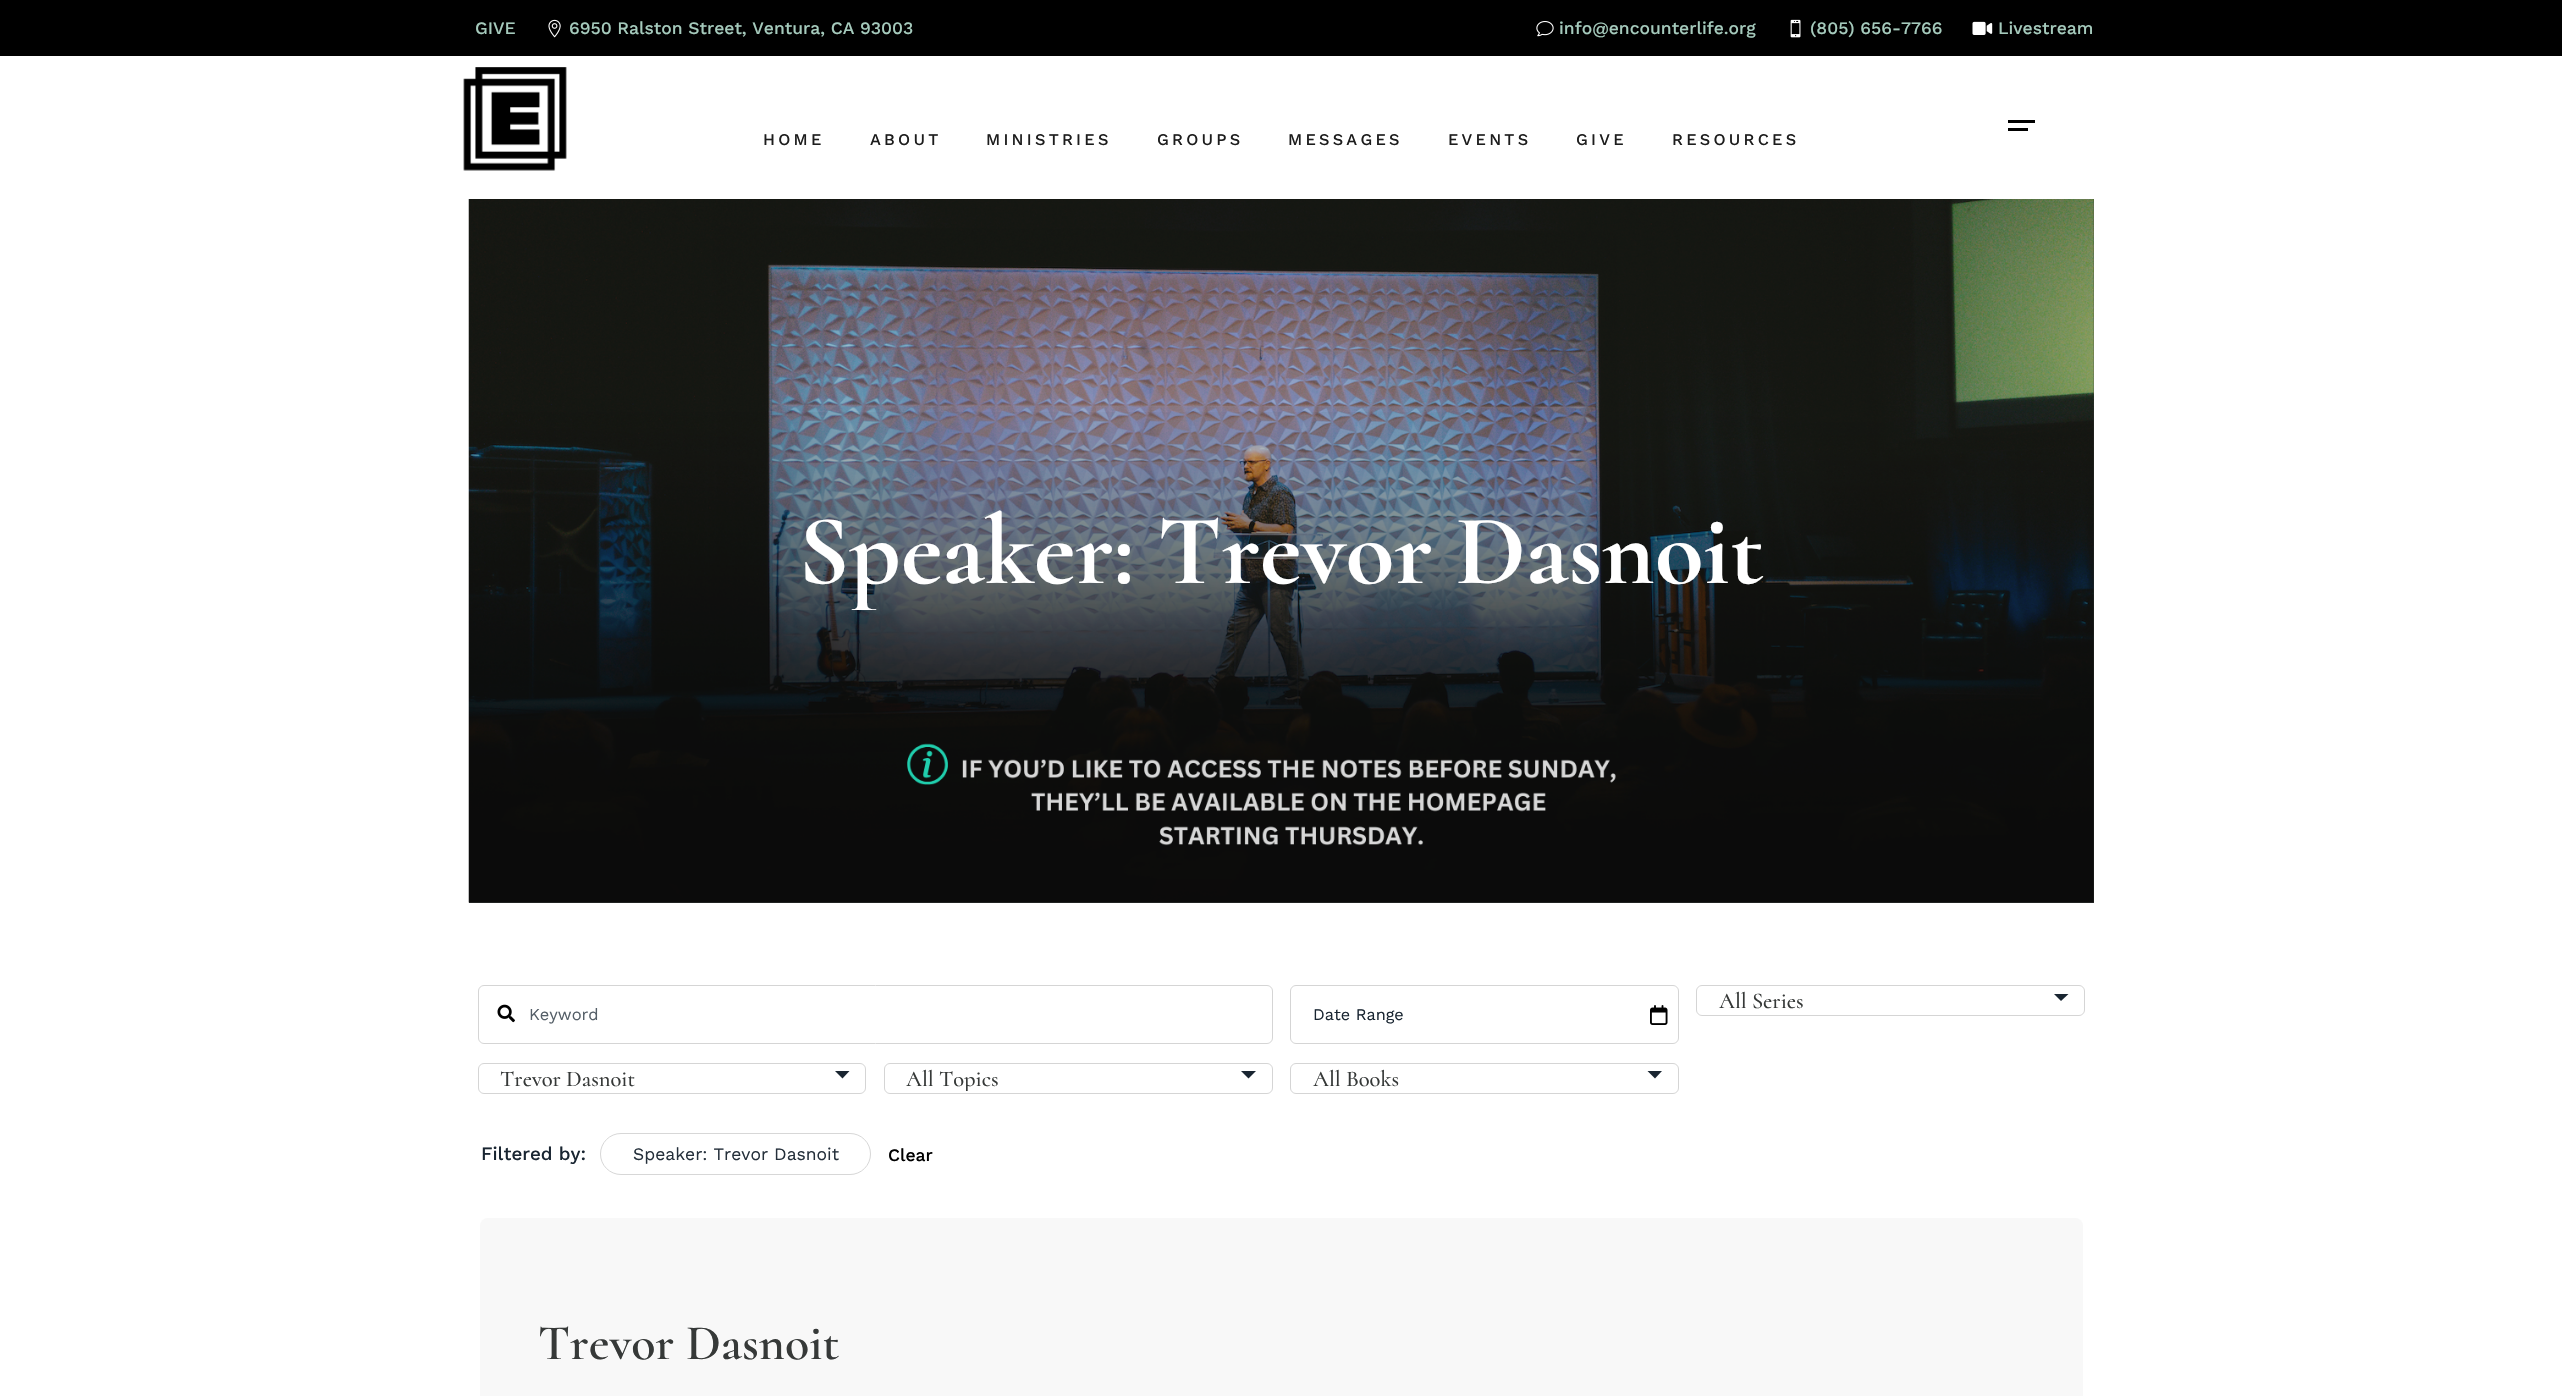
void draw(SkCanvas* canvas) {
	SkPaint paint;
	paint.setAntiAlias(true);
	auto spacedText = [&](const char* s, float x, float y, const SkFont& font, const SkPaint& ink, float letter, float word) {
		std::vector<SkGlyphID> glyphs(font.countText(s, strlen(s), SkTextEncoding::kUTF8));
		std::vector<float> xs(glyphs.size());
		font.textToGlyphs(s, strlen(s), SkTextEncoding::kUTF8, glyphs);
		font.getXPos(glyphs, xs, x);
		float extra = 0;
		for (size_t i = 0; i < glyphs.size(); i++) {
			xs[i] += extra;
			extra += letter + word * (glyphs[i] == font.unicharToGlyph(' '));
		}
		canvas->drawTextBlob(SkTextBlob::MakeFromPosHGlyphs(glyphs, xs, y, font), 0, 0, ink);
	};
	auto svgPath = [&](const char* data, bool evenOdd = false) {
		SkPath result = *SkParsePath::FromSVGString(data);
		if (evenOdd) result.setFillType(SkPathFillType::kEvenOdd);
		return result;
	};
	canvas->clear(0xffffffff);
	paint.setColor(0xff000000);
	canvas->drawRect(SkRect::MakeXYWH(0, 0, 2562, 56), paint);
	SkFont f1(fontMgr->matchFamilyStyle("Work Sans", SkFontStyle(500, SkFontStyle::kNormal_Width, SkFontStyle::kUpright_Slant)), 17.5);
	f1.setSubpixel(true);
	paint.setColor(0xffa5cabc);
	canvas->drawString("GIVE", 475, 34, f1, paint);
	canvas->drawImageRect(SkImages::DeferredFromEncodedData(SkData::MakeFromFileName("img1.png")), SkRect::MakeXYWH(548, 19, 13, 19), SkSamplingOptions());
	canvas->drawString("6950 Ralston Street, Ventura, CA 93003", 569, 34, f1, paint);
	canvas->drawImageRect(SkImages::DeferredFromEncodedData(SkData::MakeFromFileName("img2.png")), SkRect::MakeXYWH(1536, 21, 18, 16), SkSamplingOptions());
	canvas->drawString("info@encounterlife.org", 1559, 34, f1, paint);
	canvas->drawImageRect(SkImages::DeferredFromEncodedData(SkData::MakeFromFileName("img3.png")), SkRect::MakeXYWH(1790, 19, 11, 19), SkSamplingOptions());
	canvas->drawString("(805) 656-7766", 1810, 34, f1, paint);
	canvas->drawImageRect(SkImages::DeferredFromEncodedData(SkData::MakeFromFileName("img4.png")), SkRect::MakeXYWH(1972, 21, 21, 14), SkSamplingOptions());
	canvas->drawString("Livestream", 1998, 34, f1, paint);
	canvas->drawImageRect(SkImages::DeferredFromEncodedData(SkData::MakeFromFileName("img5.png")), SkRect::MakeXYWH(463, 67, 104, 104), SkSamplingOptions());
	paint.setColor(0xff000000);
	canvas->drawRect(SkRect::MakeXYWH(2008, 120, 27, 3), paint);
	canvas->drawRect(SkRect::MakeXYWH(2008, 128, 20, 3), paint);
	SkFont f2(fontMgr->matchFamilyStyle("Work Sans", SkFontStyle(500, SkFontStyle::kNormal_Width, SkFontStyle::kUpright_Slant)), 16.25);
	f2.setSubpixel(true);
	paint.setColor(0xff1d1d1d);
	spacedText("HOME", 763, 145, f2, paint, 3.25, 0);
	spacedText("ABOUT", 870, 145, f2, paint, 3.25, 0);
	spacedText("MINISTRIES", 986, 145, f2, paint, 3.25, 0);
	spacedText("GROUPS", 1157, 145, f2, paint, 3.25, 0);
	spacedText("MESSAGES", 1288, 145, f2, paint, 3.25, 0);
	spacedText("EVENTS", 1448, 145, f2, paint, 3.25, 0);
	spacedText("GIVE", 1576, 145, f2, paint, 3.25, 0);
	spacedText("RESOURCES", 1672, 145, f2, paint, 3.25, 0);
	paint.setColor(0xff363938);
	canvas->drawRect(SkRect::MakeXYWH(469, 199, 1625, 704), paint);
	canvas->drawImageRect(SkImages::DeferredFromEncodedData(SkData::MakeFromFileName("img6.png")), SkRect::MakeXYWH(468, 199, 1626, 704), SkSamplingOptions());
	canvas->save();
	canvas->clipRect(SkRect::MakeXYWH(469, 491, 1625, 119));
	SkFont f3(fontMgr->matchFamilyStyle("Cormorant", SkFontStyle::Bold()), 100);
	f3.setSubpixel(true);
	paint.setColor(0xffffffff);
	canvas->drawString("Speaker: Trevor Dasnoit", 798, 583, f3, paint);
	canvas->restore();
	paint.setColor(0xff192531);
	canvas->drawPath(svgPath("M2054 994H2068.5L2061 1001Z"), paint);
	paint.setStroke(true);
	paint.setStrokeWidth(1);
	paint.setColor(0xffd5d5d5);
	canvas->drawRoundRect(SkRect::MakeXYWH(1696.5, 985.5, 388, 30), 5.5, 5.5, paint);
	SkFont f4(fontMgr->matchFamilyStyle("Cormorant", SkFontStyle(500, SkFontStyle::kNormal_Width, SkFontStyle::kUpright_Slant)), 22.5);
	f4.setSubpixel(true);
	paint.setStroke(false);
	paint.setColor(0xff363938);
	canvas->drawString("All Series", 1719, 1008, f4, paint);
	paint.setStroke(true);
	paint.setColor(0xffd5d5d5);
	canvas->drawRoundRect(SkRect::MakeXYWH(478.5, 985.5, 794, 58), 5.5, 5.5, paint);
	canvas->drawImageRect(SkImages::DeferredFromEncodedData(SkData::MakeFromFileName("img7.png")), SkRect::MakeXYWH(497, 1004, 18, 19), SkSamplingOptions());
	SkFont f5(fontMgr->matchFamilyStyle("Work Sans", SkFontStyle::Normal()), 16.5);
	f5.setSubpixel(true);
	paint.setStroke(false);
	paint.setColor(0xff555f68);
	canvas->drawString("Keyword", 529, 1020, f5, paint);
	canvas->drawImageRect(SkImages::DeferredFromEncodedData(SkData::MakeFromFileName("img8.png")), SkRect::MakeXYWH(1650, 1005, 18, 20), SkSamplingOptions());
	paint.setStroke(true);
	paint.setColor(0xffd5d5d5);
	canvas->drawRoundRect(SkRect::MakeXYWH(1290.5, 985.5, 388, 58), 5.5, 5.5, paint);
	SkFont f6(fontMgr->matchFamilyStyle("Work Sans", SkFontStyle::Normal()), 16.25);
	f6.setSubpixel(true);
	paint.setStroke(false);
	paint.setColor(0xff192531);
	canvas->drawString("Date Range", 1313, 1020, f6, paint);
	canvas->drawPath(svgPath("M835 1071H849.5L842.5 1078.5Z"), paint);
	paint.setStroke(true);
	paint.setColor(0xffd5d5d5);
	canvas->drawRoundRect(SkRect::MakeXYWH(478.5, 1063.5, 387, 30), 5.5, 5.5, paint);
	paint.setStroke(false);
	paint.setColor(0xff363938);
	canvas->drawString("Trevor Dasnoit", 500, 1086, f4, paint);
	paint.setColor(0xff192531);
	canvas->drawPath(svgPath("M1241 1071H1256L1248.5 1078.5Z"), paint);
	paint.setStroke(true);
	paint.setColor(0xffd5d5d5);
	canvas->drawRoundRect(SkRect::MakeXYWH(884.5, 1063.5, 388, 30), 5.5, 5.5, paint);
	canvas->save();
	canvas->clipRect(SkRect::MakeXYWH(906, 1066, 328, 25));
	paint.setStroke(false);
	paint.setColor(0xff363938);
	canvas->drawString("All Topics", 906, 1086, f4, paint);
	canvas->restore();
	paint.setColor(0xff192531);
	canvas->drawPath(svgPath("M1647.5 1071H1662L1655 1078.5Z"), paint);
	paint.setStroke(true);
	paint.setColor(0xffd5d5d5);
	canvas->drawRoundRect(SkRect::MakeXYWH(1290.5, 1063.5, 388, 30), 5.5, 5.5, paint);
	paint.setStroke(false);
	paint.setColor(0xff363938);
	canvas->drawString("All Books", 1313, 1086, f4, paint);
	SkFont f7(fontMgr->matchFamilyStyle("Work Sans", SkFontStyle(500, SkFontStyle::kNormal_Width, SkFontStyle::kUpright_Slant)), 18.75);
	f7.setSubpixel(true);
	paint.setColor(0xff192531);
	canvas->drawString("Filtered by:", 481, 1160, f7, paint);
	paint.setStroke(true);
	paint.setColor(0xffd7d7d7);
	canvas->drawRoundRect(SkRect::MakeXYWH(600.5, 1133.5, 270, 41), 20.5, 20.5, paint);
	SkFont f8(fontMgr->matchFamilyStyle("Work Sans", SkFontStyle::Normal()), 17.5);
	f8.setSubpixel(true);
	paint.setStroke(false);
	paint.setColor(0xff25303b);
	canvas->drawString("Speaker: Trevor Dasnoit", 633, 1160, f8, paint);
	paint.setColor(0xff000000);
	canvas->drawString("Clear", 888, 1161, f1, paint);
	paint.setColor(0xfff8f8f8);
	canvas->drawRoundRect(SkRect::MakeXYWH(480, 1218, 1603, 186), 8, 8, paint);
	SkFont f9(fontMgr->matchFamilyStyle("Cormorant", SkFontStyle(600, SkFontStyle::kNormal_Width, SkFontStyle::kUpright_Slant)), 50);
	f9.setSubpixel(true);
	paint.setColor(0xff363938);
	canvas->drawString("Trevor Dasnoit", 538, 1359, f9, paint);
}
